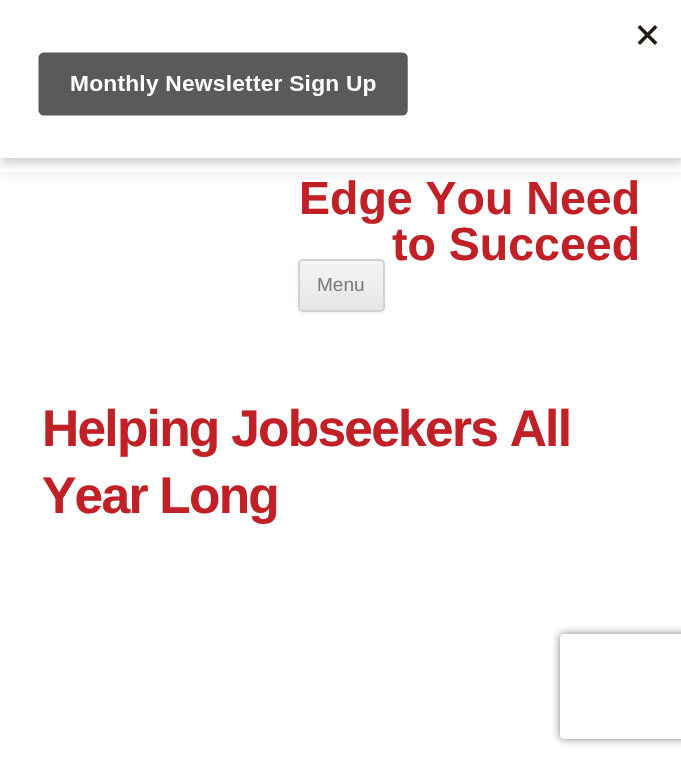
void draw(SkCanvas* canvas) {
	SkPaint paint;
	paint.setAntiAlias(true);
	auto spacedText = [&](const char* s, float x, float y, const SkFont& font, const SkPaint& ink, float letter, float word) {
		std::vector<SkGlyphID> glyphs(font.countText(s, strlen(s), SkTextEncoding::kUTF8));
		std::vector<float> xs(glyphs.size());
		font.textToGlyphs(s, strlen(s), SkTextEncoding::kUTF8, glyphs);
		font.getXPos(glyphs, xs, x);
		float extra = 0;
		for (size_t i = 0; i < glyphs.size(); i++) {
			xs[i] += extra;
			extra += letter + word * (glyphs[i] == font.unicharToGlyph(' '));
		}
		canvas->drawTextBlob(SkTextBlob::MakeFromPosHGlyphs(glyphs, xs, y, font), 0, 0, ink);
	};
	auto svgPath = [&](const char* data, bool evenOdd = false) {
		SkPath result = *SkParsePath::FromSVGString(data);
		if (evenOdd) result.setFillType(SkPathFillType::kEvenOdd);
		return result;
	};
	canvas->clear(0xffffffff);
	paint.setColor(0x4dacabab);
	paint.setMaskFilter(SkMaskFilter::MakeBlur(kNormal_SkBlurStyle, 9));
	canvas->drawRect(SkRect::MakeXYWH(0, -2, 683, 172), paint);
	paint.setMaskFilter(nullptr);
	paint.setColor(0xffffffff);
	canvas->drawRect(SkRect::MakeXYWH(0, 158, 681, 14), paint);
	paint.setColor(0x33000000);
	paint.setMaskFilter(SkMaskFilter::MakeBlur(kNormal_SkBlurStyle, 5));
	canvas->drawRect(SkRect::MakeXYWH(0, 5, 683, 158), paint);
	paint.setMaskFilter(nullptr);
	paint.setColor(0xffffffff);
	canvas->drawRect(SkRect::MakeXYWH(0, 0, 681, 158), paint);
	canvas->drawImageRect(SkImages::DeferredFromEncodedData(SkData::MakeFromFileName("img1.png")), SkRect::MakeXYWH(38, 25, 620, 91), SkSamplingOptions());
	SkFont f1(fontMgr->matchFamilyStyle("Liberation Sans", SkFontStyle::Bold()), 46.5);
	f1.setSubpixel(true);
	paint.setColor(0xffc02026);
	canvas->drawString("Edge You Need", 299, 214, f1, paint);
	canvas->drawString("to Succeed", 392, 260, f1, paint);
	paint.setColor(0x1a404040);
	paint.setMaskFilter(SkMaskFilter::MakeBlur(kNormal_SkBlurStyle, 2));
	canvas->drawRoundRect(SkRect::MakeXYWH(298, 261, 87, 52), 5, 5, paint);
	paint.setMaskFilter(nullptr);
	canvas->save();
	canvas->clipPath(svgPath("M303 259H380C383 259 385 261 385 264V307C385 310 383 312 380 312H303C300 312 298 310 298 307V264C298 261 300 259 303 259Z"), true);
	{
		const SkColor colors[] = {0xfff4f4f4, 0xffe6e6e6};
		const float stops[] = {0, 1};
		const SkPoint ends[] = {{341, 261}, {341, 310}};
		paint.setShader(SkGradientShader::MakeLinear(ends, colors, stops, 2, SkTileMode::kClamp));
		paint.setAlpha(255);
	}
	canvas->drawRect(SkRect::MakeXYWH(298, 261, 87, 49), paint);
	canvas->restore();
	paint.setStroke(true);
	paint.setStrokeWidth(2);
	paint.setShader(nullptr);
	paint.setColor(0xffd2d2d2);
	canvas->drawRoundRect(SkRect::MakeXYWH(299, 260, 85, 51), 4, 4, paint);
	SkFont f2(fontMgr->matchFamilyStyle("Liberation Sans", SkFontStyle::Normal()), 19);
	f2.setSubpixel(true);
	paint.setStroke(false);
	paint.setColor(0xff7c7c7c);
	canvas->drawString("Menu", 317, 291, f2, paint);
	SkFont f3(fontMgr->matchFamilyStyle("Liberation Sans", SkFontStyle::Bold()), 51.5);
	f3.setSubpixel(true);
	paint.setColor(0xffc02026);
	spacedText("Helping Jobseekers All", 42, 446, f3, paint, -1.75, 0);
	spacedText("Year Long", 42, 513, f3, paint, -1.75, 0);
	canvas->save();
	canvas->clipPath(svgPath("M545 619H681V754H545ZM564 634H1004C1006 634 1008 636 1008 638V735C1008 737 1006 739 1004 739H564C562 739 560 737 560 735V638C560 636 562 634 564 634Z", true), true);
	paint.setColor(0xff808080);
	paint.setMaskFilter(SkMaskFilter::MakeBlur(kNormal_SkBlurStyle, 4.5));
	canvas->drawRoundRect(SkRect::MakeXYWH(560, 634, 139, 105), 4, 4, paint);
	paint.setMaskFilter(nullptr);
	canvas->restore();
}
